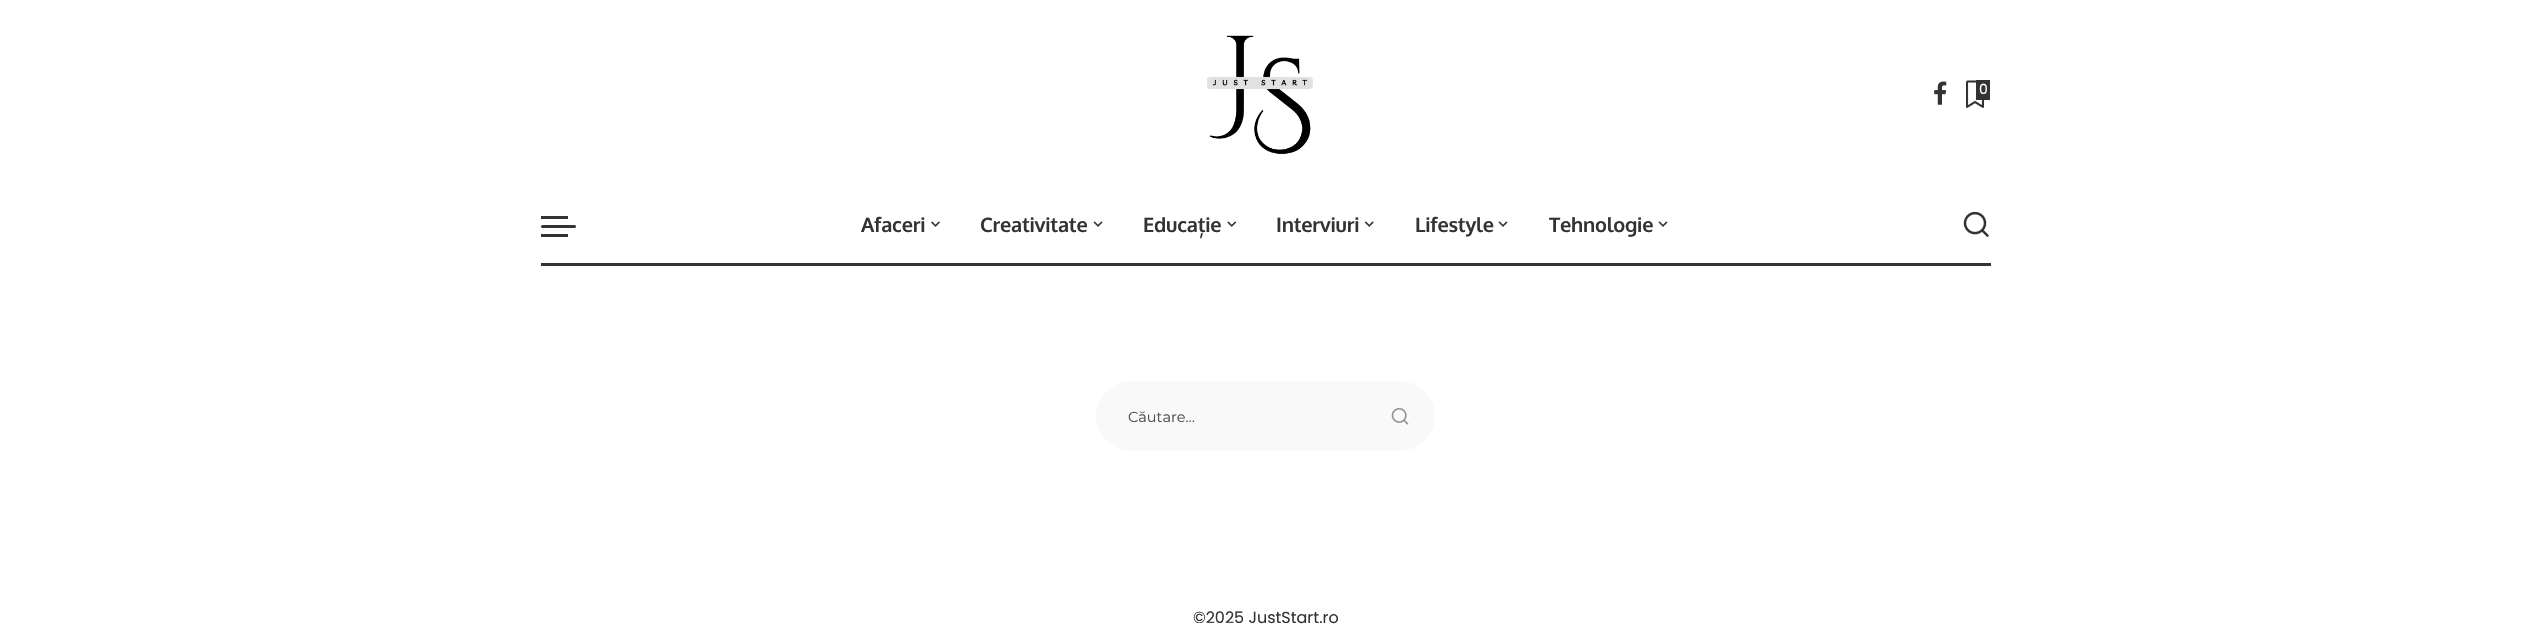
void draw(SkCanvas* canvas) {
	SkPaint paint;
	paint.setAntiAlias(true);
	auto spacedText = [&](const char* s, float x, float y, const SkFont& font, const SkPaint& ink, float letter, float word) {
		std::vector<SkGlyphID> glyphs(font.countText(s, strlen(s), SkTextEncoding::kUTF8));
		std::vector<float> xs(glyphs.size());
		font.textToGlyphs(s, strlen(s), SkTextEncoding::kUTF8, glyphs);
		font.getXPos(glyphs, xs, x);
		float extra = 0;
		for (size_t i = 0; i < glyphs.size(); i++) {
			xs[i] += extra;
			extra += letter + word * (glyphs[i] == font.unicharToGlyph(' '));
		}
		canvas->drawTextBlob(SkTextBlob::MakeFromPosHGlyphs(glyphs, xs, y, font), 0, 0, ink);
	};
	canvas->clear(0xffffffff);
	canvas->drawImageRect(SkImages::DeferredFromEncodedData(SkData::MakeFromFileName("img1.png")), SkRect::MakeXYWH(1207, 35, 106, 119), SkSamplingOptions());
	canvas->drawImageRect(SkImages::DeferredFromEncodedData(SkData::MakeFromFileName("img2.png")), SkRect::MakeXYWH(1934, 81, 13, 24), SkSamplingOptions());
	canvas->drawImageRect(SkImages::DeferredFromEncodedData(SkData::MakeFromFileName("img3.png")), SkRect::MakeXYWH(1966, 80, 18, 28), SkSamplingOptions());
	paint.setColor(0xff333333);
	canvas->drawRect(SkRect::MakeXYWH(1976, 80, 14, 20), paint);
	SkFont f1(fontMgr->matchFamilyStyle("Poppins", SkFontStyle::Normal()), 14);
	f1.setSubpixel(true);
	paint.setColor(0xffffffff);
	canvas->drawString("0", 1979, 94, f1, paint);
	paint.setColor(0xff333333);
	canvas->drawRect(SkRect::MakeXYWH(541, 263, 1450, 3), paint);
	canvas->drawRoundRect(SkRect::MakeXYWH(541, 225, 35, 3), 1.5, 1.5, paint);
	canvas->drawRect(SkRect::MakeXYWH(541, 216, 27, 3), paint);
	canvas->drawRect(SkRect::MakeXYWH(541, 234, 27, 3), paint);
	SkFont f2(fontMgr->matchFamilyStyle("Oxygen", SkFontStyle::Bold()), 20);
	f2.setSubpixel(true);
	spacedText("Afaceri", 861, 232, f2, paint, -0.25, 0);
	canvas->drawImageRect(SkImages::DeferredFromEncodedData(SkData::MakeFromFileName("img4.png")), SkRect::MakeXYWH(931, 221, 9, 6), SkSamplingOptions());
	spacedText("Creativitate", 980, 232, f2, paint, -0.25, 0);
	canvas->drawImageRect(SkImages::DeferredFromEncodedData(SkData::MakeFromFileName("img5.png")), SkRect::MakeXYWH(1093, 221, 10, 6), SkSamplingOptions());
	spacedText("Educație", 1143, 232, f2, paint, -0.25, 0);
	canvas->drawImageRect(SkImages::DeferredFromEncodedData(SkData::MakeFromFileName("img6.png")), SkRect::MakeXYWH(1227, 221, 10, 6), SkSamplingOptions());
	spacedText("Interviuri", 1276, 232, f2, paint, -0.25, 0);
	canvas->drawImageRect(SkImages::DeferredFromEncodedData(SkData::MakeFromFileName("img7.png")), SkRect::MakeXYWH(1364, 221, 10, 6), SkSamplingOptions());
	spacedText("Lifestyle", 1415, 232, f2, paint, -0.25, 0);
	canvas->drawImageRect(SkImages::DeferredFromEncodedData(SkData::MakeFromFileName("img5.png")), SkRect::MakeXYWH(1498, 221, 10, 6), SkSamplingOptions());
	spacedText("Tehnologie", 1549, 232, f2, paint, -0.25, 0);
	canvas->drawImageRect(SkImages::DeferredFromEncodedData(SkData::MakeFromFileName("img5.png")), SkRect::MakeXYWH(1658, 221, 10, 6), SkSamplingOptions());
	canvas->drawImageRect(SkImages::DeferredFromEncodedData(SkData::MakeFromFileName("img8.png")), SkRect::MakeXYWH(1963, 211, 26, 26), SkSamplingOptions());
	paint.setColor(0xfff9f9f9);
	canvas->drawRoundRect(SkRect::MakeXYWH(1096, 381, 339, 70), 35, 35, paint);
	SkFont f3(fontMgr->matchFamilyStyle("Montserrat", SkFontStyle::Normal()), 14.5);
	f3.setSubpixel(true);
	paint.setColor(0xff4b4b4b);
	canvas->drawString("Căutare…", 1128, 422, f3, paint);
	canvas->drawImageRect(SkImages::DeferredFromEncodedData(SkData::MakeFromFileName("img9.png")), SkRect::MakeXYWH(1391, 407, 18, 18), SkSamplingOptions());
	SkFont f4(fontMgr->matchFamilyStyle("Poppins", SkFontStyle::Normal()), 16);
	f4.setSubpixel(true);
	paint.setColor(0xff333333);
	canvas->drawString("©2025 JustStart.ro", 1193, 623, f4, paint);
}
